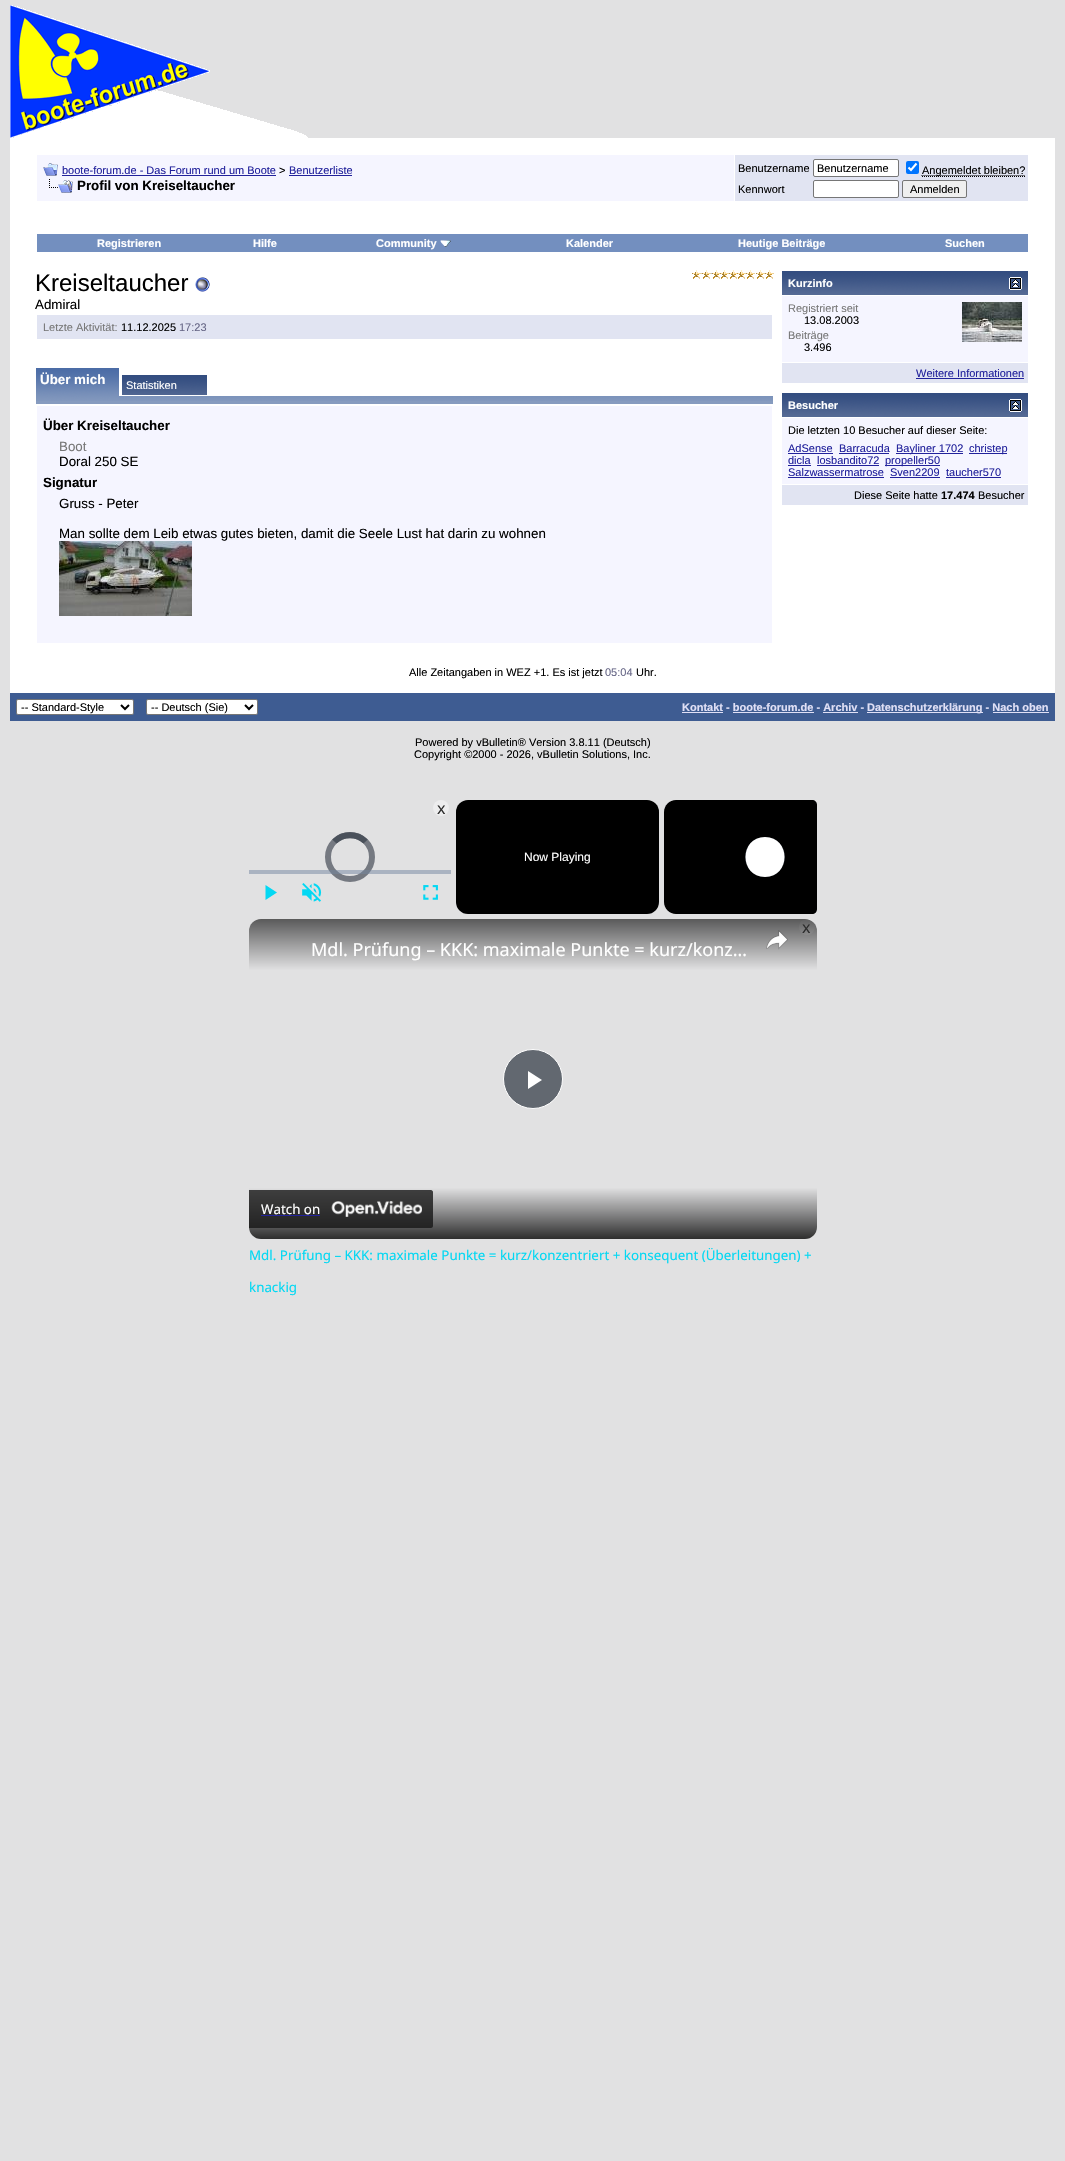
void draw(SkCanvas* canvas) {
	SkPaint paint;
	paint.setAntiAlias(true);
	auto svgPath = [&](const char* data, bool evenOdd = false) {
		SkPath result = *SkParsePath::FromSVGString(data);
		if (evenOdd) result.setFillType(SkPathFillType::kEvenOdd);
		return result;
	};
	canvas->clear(0xffe1e1e2);
	canvas->drawImageRect(SkImages::DeferredFromEncodedData(SkData::MakeFromFileName("img1.png")), SkRect::MakeXYWH(10, 5, 298, 133), SkSamplingOptions());
	paint.setColor(0xffffffff);
	canvas->drawRect(SkRect::MakeXYWH(10, 138, 1045, 555), paint);
	paint.setColor(0xfff5f5ff);
	canvas->drawRect(SkRect::MakeXYWH(37, 155, 697, 46), paint);
	canvas->drawImageRect(SkImages::DeferredFromEncodedData(SkData::MakeFromFileName("img2.png")), SkRect::MakeXYWH(43, 163, 15, 13), SkSamplingOptions());
	SkFont f1(fontMgr->matchFamilyStyle("Liberation Sans", SkFontStyle::Normal()), 11);
	f1.setSubpixel(true);
	paint.setColor(0xff22229c);
	canvas->drawString("boote-forum.de - Das Forum rund um Boote", 62, 174, f1, paint);
	canvas->drawRect(SkRect::MakeXYWH(62, 175, 214, 1), paint);
	paint.setColor(0xff000000);
	canvas->drawString(">", 279, 174, f1, paint);
	paint.setColor(0xff22229c);
	canvas->drawString("Benutzerliste", 289, 174, f1, paint);
	canvas->drawRect(SkRect::MakeXYWH(289, 175, 63, 1), paint);
	canvas->drawImageRect(SkImages::DeferredFromEncodedData(SkData::MakeFromFileName("img3.png")), SkRect::MakeXYWH(49, 179, 24, 14), SkSamplingOptions());
	SkFont f2(fontMgr->matchFamilyStyle("Liberation Sans", SkFontStyle::Bold()), 13.35);
	f2.setSubpixel(true);
	paint.setColor(0xff000000);
	canvas->drawString("Profil von Kreiseltaucher", 77, 190, f2, paint);
	paint.setColor(0xffe1e4f2);
	canvas->drawRect(SkRect::MakeXYWH(735, 155, 293, 46), paint);
	paint.setColor(0xff000000);
	canvas->drawString("Benutzername", 738, 172, f1, paint);
	paint.setColor(0xffffffff);
	canvas->drawRoundRect(SkRect::MakeXYWH(813.5, 159.5, 85, 17), 1.5, 1.5, paint);
	paint.setStroke(true);
	paint.setStrokeWidth(1);
	paint.setColor(0xff767676);
	canvas->drawRoundRect(SkRect::MakeXYWH(813.5, 159.5, 85, 17), 1.5, 1.5, paint);
	paint.setStroke(false);
	paint.setColor(0xff000000);
	canvas->drawString("Benutzername", 817, 172, f1, paint);
	paint.setColor(0xff0075ff);
	canvas->drawRoundRect(SkRect::MakeXYWH(906, 161, 13, 13), 2, 2, paint);
	paint.setStroke(true);
	paint.setStrokeWidth(2.1);
	paint.setColor(0xffffffff);
	canvas->drawPath(svgPath("M908.5 167.5L911 170L916.5 163.5"), paint);
	paint.setStrokeWidth(1);
	paint.setColor(0xff000000);
	paint.setPathEffect(SkDashPathEffect::Make({{1, 1}}, 0));
	canvas->drawPath(svgPath("M922 176.5H1025"), paint);
	paint.setPathEffect(nullptr);
	paint.setPathEffect(SkDashPathEffect::Make({{1, 1}}, 0));
	canvas->drawPath(svgPath("M921.5 175.5H1025"), paint);
	paint.setPathEffect(nullptr);
	paint.setStroke(false);
	canvas->drawString("Angemeldet bleiben?", 922, 174, f1, paint);
	canvas->drawString("Kennwort", 738, 193, f1, paint);
	paint.setColor(0xffffffff);
	canvas->drawRoundRect(SkRect::MakeXYWH(813.5, 180.5, 85, 17), 1.5, 1.5, paint);
	paint.setStroke(true);
	paint.setColor(0xff767676);
	canvas->drawRoundRect(SkRect::MakeXYWH(813.5, 180.5, 85, 17), 1.5, 1.5, paint);
	paint.setStroke(false);
	paint.setColor(0xffefefef);
	canvas->drawRoundRect(SkRect::MakeXYWH(902.5, 180.5, 64, 17), 1.5, 1.5, paint);
	paint.setStroke(true);
	paint.setColor(0xff767676);
	canvas->drawRoundRect(SkRect::MakeXYWH(902.5, 180.5, 64, 17), 1.5, 1.5, paint);
	paint.setStroke(false);
	paint.setColor(0xff000000);
	canvas->drawString("Anmelden", 910, 193, f1, paint);
	paint.setColor(0xff738fbf);
	canvas->drawRect(SkRect::MakeXYWH(37, 234, 991, 18), paint);
	SkFont f3(fontMgr->matchFamilyStyle("Liberation Sans", SkFontStyle::Bold()), 11);
	f3.setSubpixel(true);
	paint.setColor(0xffffffff);
	canvas->drawString("Registrieren", 97, 247, f3, paint);
	canvas->drawString("Hilfe", 253, 247, f3, paint);
	canvas->drawString("Community", 376, 247, f3, paint);
	canvas->drawImageRect(SkImages::DeferredFromEncodedData(SkData::MakeFromFileName("img4.png")), SkRect::MakeXYWH(440, 240, 11, 7), SkSamplingOptions());
	canvas->drawString("Kalender", 566, 247, f3, paint);
	canvas->drawString("Heutige Beiträge", 738, 247, f3, paint);
	canvas->drawString("Suchen", 945, 247, f3, paint);
	SkFont f4(fontMgr->matchFamilyStyle("Liberation Sans", SkFontStyle::Normal()), 24);
	f4.setSubpixel(true);
	paint.setColor(0xff000000);
	canvas->drawString("Kreiseltaucher", 35, 291, f4, paint);
	canvas->drawImageRect(SkImages::DeferredFromEncodedData(SkData::MakeFromFileName("img5.png")), SkRect::MakeXYWH(195, 277, 15, 15), SkSamplingOptions());
	canvas->drawImageRect(SkImages::DeferredFromEncodedData(SkData::MakeFromFileName("img6.png")), SkRect::MakeXYWH(692, 270, 82, 9), SkSamplingOptions());
	SkFont f5(fontMgr->matchFamilyStyle("Liberation Sans", SkFontStyle::Normal()), 13.35);
	f5.setSubpixel(true);
	canvas->drawString("Admiral", 35, 309, f5, paint);
	paint.setColor(0xffe1e4f2);
	canvas->drawRect(SkRect::MakeXYWH(37, 315, 735, 24), paint);
	paint.setColor(0xff777777);
	canvas->drawString("Letzte Aktivität:", 43, 331, f1, paint);
	paint.setColor(0xff000000);
	canvas->drawString("11.12.2025", 121, 331, f1, paint);
	paint.setColor(0xff666686);
	canvas->drawString("17:23", 179, 331, f1, paint);
	canvas->drawImageRect(SkImages::DeferredFromEncodedData(SkData::MakeFromFileName("img7.png")), SkRect::MakeXYWH(36, 368, 83, 28), SkSamplingOptions());
	paint.setColor(0xffffffff);
	canvas->drawString("Über mich", 40, 384, f2, paint);
	canvas->drawImageRect(SkImages::DeferredFromEncodedData(SkData::MakeFromFileName("img8.png")), SkRect::MakeXYWH(122, 375, 85, 20), SkSamplingOptions());
	canvas->drawString("Statistiken", 126, 389, f1, paint);
	paint.setColor(0xff869bbf);
	canvas->drawRect(SkRect::MakeXYWH(36, 401, 737, 3), paint);
	canvas->drawImageRect(SkImages::DeferredFromEncodedData(SkData::MakeFromFileName("img9.png")), SkRect::MakeXYWH(36, 396, 737, 5), SkSamplingOptions());
	paint.setColor(0xfff5f5ff);
	canvas->drawRect(SkRect::MakeXYWH(37, 406, 735, 237), paint);
	paint.setColor(0xff000000);
	canvas->drawString("Über Kreiseltaucher", 43, 430, f2, paint);
	paint.setColor(0xff777777);
	canvas->drawString("Boot", 59, 451, f5, paint);
	paint.setColor(0xff000000);
	canvas->drawString("Doral 250 SE", 59, 466, f5, paint);
	canvas->drawString("Signatur", 43, 487, f2, paint);
	canvas->drawString("Gruss - Peter", 59, 508, f5, paint);
	canvas->drawString("Man sollte dem Leib etwas gutes bieten, damit die Seele Lust hat darin zu wohnen", 59, 538, f5, paint);
	canvas->drawImageRect(SkImages::DeferredFromEncodedData(SkData::MakeFromFileName("img10.png")), SkRect::MakeXYWH(59, 541, 133, 75), SkSamplingOptions());
	canvas->drawImageRect(SkImages::DeferredFromEncodedData(SkData::MakeFromFileName("img11.png")), SkRect::MakeXYWH(782, 271, 246, 24), SkSamplingOptions());
	paint.setColor(0xffffffff);
	canvas->drawString("Kurzinfo", 788, 287, f3, paint);
	canvas->drawImageRect(SkImages::DeferredFromEncodedData(SkData::MakeFromFileName("img12.png")), SkRect::MakeXYWH(1009, 277, 13, 13), SkSamplingOptions());
	paint.setColor(0xfff5f5ff);
	canvas->drawRect(SkRect::MakeXYWH(782, 296, 246, 66), paint);
	paint.setColor(0xff777777);
	canvas->drawString("Registriert seit", 788, 312, f1, paint);
	paint.setColor(0xff000000);
	canvas->drawString("13.08.2003", 804, 324, f1, paint);
	paint.setColor(0xff777777);
	canvas->drawString("Beiträge", 788, 339, f1, paint);
	paint.setColor(0xff000000);
	canvas->drawString("3.496", 804, 351, f1, paint);
	canvas->drawImageRect(SkImages::DeferredFromEncodedData(SkData::MakeFromFileName("img13.png")), SkRect::MakeXYWH(962, 302, 60, 40), SkSamplingOptions());
	paint.setColor(0xffe1e4f2);
	canvas->drawRect(SkRect::MakeXYWH(782, 363, 246, 20), paint);
	paint.setColor(0xff22229c);
	canvas->drawString("Weitere Informationen", 916, 377, f1, paint);
	canvas->drawRect(SkRect::MakeXYWH(916, 378, 108, 1), paint);
	canvas->drawImageRect(SkImages::DeferredFromEncodedData(SkData::MakeFromFileName("img11.png")), SkRect::MakeXYWH(782, 393, 246, 24), SkSamplingOptions());
	paint.setColor(0xffffffff);
	canvas->drawString("Besucher", 788, 409, f3, paint);
	canvas->drawImageRect(SkImages::DeferredFromEncodedData(SkData::MakeFromFileName("img12.png")), SkRect::MakeXYWH(1009, 399, 13, 13), SkSamplingOptions());
	paint.setColor(0xfff5f5ff);
	canvas->drawRect(SkRect::MakeXYWH(782, 418, 246, 66), paint);
	paint.setColor(0xff000000);
	canvas->drawString("Die letzten 10 Besucher auf dieser Seite:", 788, 434, f1, paint);
	paint.setColor(0xff22229c);
	canvas->drawString("AdSense", 788, 452, f1, paint);
	canvas->drawRect(SkRect::MakeXYWH(788, 453, 45, 1), paint);
	canvas->drawString("Barracuda", 839, 452, f1, paint);
	canvas->drawRect(SkRect::MakeXYWH(839, 453, 50, 1), paint);
	canvas->drawRect(SkRect::MakeXYWH(896, 453, 67, 1), paint);
	canvas->drawString("Bayliner 1702", 896, 452, f1, paint);
	canvas->drawRect(SkRect::MakeXYWH(969, 453, 38, 1), paint);
	canvas->drawString("christep", 969, 452, f1, paint);
	canvas->drawString("dicla", 788, 464, f1, paint);
	canvas->drawRect(SkRect::MakeXYWH(788, 465, 23, 1), paint);
	canvas->drawString("losbandito72", 817, 464, f1, paint);
	canvas->drawRect(SkRect::MakeXYWH(817, 465, 62, 1), paint);
	canvas->drawRect(SkRect::MakeXYWH(885, 465, 55, 1), paint);
	canvas->drawString("propeller50", 885, 464, f1, paint);
	canvas->drawString("Salzwassermatrose", 788, 476, f1, paint);
	canvas->drawRect(SkRect::MakeXYWH(788, 477, 96, 1), paint);
	canvas->drawString("Sven2209", 890, 476, f1, paint);
	canvas->drawRect(SkRect::MakeXYWH(890, 477, 50, 1), paint);
	canvas->drawString("taucher570", 946, 476, f1, paint);
	canvas->drawRect(SkRect::MakeXYWH(946, 477, 55, 1), paint);
	paint.setColor(0xffe1e4f2);
	canvas->drawRect(SkRect::MakeXYWH(782, 485, 246, 20), paint);
	paint.setColor(0xff000000);
	canvas->drawString("Diese Seite hatte", 854, 499, f1, paint);
	canvas->drawString("17.474", 941, 499, f3, paint);
	canvas->drawString("Besucher", 978, 499, f1, paint);
	canvas->drawString("Alle Zeitangaben in WEZ +1. Es ist jetzt", 409, 676, f1, paint);
	paint.setColor(0xff666686);
	canvas->drawString("05:04", 605, 676, f1, paint);
	paint.setColor(0xff000000);
	canvas->drawString("Uhr.", 636, 676, f1, paint);
	paint.setColor(0xff3e5c92);
	canvas->drawRect(SkRect::MakeXYWH(10, 693, 1045, 28), paint);
	paint.setColor(0xffffffff);
	canvas->drawRoundRect(SkRect::MakeXYWH(16.5, 699.5, 117, 15), 1.5, 1.5, paint);
	paint.setStroke(true);
	paint.setColor(0xff767676);
	canvas->drawRoundRect(SkRect::MakeXYWH(16.5, 699.5, 117, 15), 1.5, 1.5, paint);
	paint.setStrokeWidth(2);
	paint.setColor(0xff000000);
	canvas->drawPath(svgPath("M121 705L125 709L129 705"), paint);
	paint.setStroke(false);
	canvas->drawString("-- Standard-Style", 21, 711, f1, paint);
	paint.setColor(0xffffffff);
	canvas->drawRoundRect(SkRect::MakeXYWH(146.5, 699.5, 111, 15), 1.5, 1.5, paint);
	paint.setStroke(true);
	paint.setStrokeWidth(1);
	paint.setColor(0xff767676);
	canvas->drawRoundRect(SkRect::MakeXYWH(146.5, 699.5, 111, 15), 1.5, 1.5, paint);
	paint.setStrokeWidth(2);
	paint.setColor(0xff000000);
	canvas->drawPath(svgPath("M245 705L249 709L253 705"), paint);
	paint.setStroke(false);
	canvas->drawString("-- Deutsch (Sie)", 151, 711, f1, paint);
	paint.setColor(0xffe0e0f6);
	canvas->drawString("Kontakt - boote-forum.de - Archiv -", 682, 711, f3, paint);
	canvas->drawRect(SkRect::MakeXYWH(682, 712, 41, 1), paint);
	canvas->drawRect(SkRect::MakeXYWH(733, 712, 81, 1), paint);
	canvas->drawRect(SkRect::MakeXYWH(823, 712, 35, 1), paint);
	canvas->drawRect(SkRect::MakeXYWH(867, 712, 116, 1), paint);
	canvas->drawString("Datenschutzerklärung - Nach oben", 867, 711, f3, paint);
	canvas->drawRect(SkRect::MakeXYWH(993, 712, 56, 1), paint);
	paint.setColor(0xff000000);
	canvas->drawString("Powered by vBulletin® Version 3.8.11 (Deutsch)", 415, 746, f1, paint);
	canvas->drawString("Copyright ©2000 - 2026, vBulletin Solutions, Inc.", 414, 758, f1, paint);
	paint.setColor(0xffededee);
	canvas->drawCircle(441, 808, 8, paint);
	SkFont f6(fontMgr->matchFamilyStyle("Noto Sans", SkFontStyle::Normal()), 16);
	f6.setSubpixel(true);
	paint.setColor(0xff2d2d2d);
	canvas->drawString("x", 437, 814, f6, paint);
	paint.setStroke(true);
	paint.setStrokeWidth(6);
	paint.setColor(0xff757981);
	canvas->drawCircle(350, 857, 22, paint);
	paint.setColor(0xb3464d57);
	canvas->drawPath(svgPath("M334.5 841.5C343 833 357 833 365.5 841.5"), paint);
	canvas->drawPath(svgPath("M334.5 841.5C343 833 357 833 365.5 841.5"), paint);
	paint.setStroke(false);
	paint.setColor(0x8073859f);
	canvas->drawRect(SkRect::MakeXYWH(249, 870, 202, 4), paint);
	paint.setColor(0xff03d8f3);
	canvas->drawPath(svgPath("M265.5 885V900L277 892.5Z"), paint);
	canvas->drawImageRect(SkImages::DeferredFromEncodedData(SkData::MakeFromFileName("img14.png")), SkRect::MakeXYWH(302, 883, 20, 19), SkSamplingOptions());
	canvas->drawImageRect(SkImages::DeferredFromEncodedData(SkData::MakeFromFileName("img15.png")), SkRect::MakeXYWH(423, 885, 15, 15), SkSamplingOptions());
	paint.setColor(0xff000000);
	canvas->drawRoundRect(SkRect::MakeXYWH(456, 800, 203, 114), 12, 12, paint);
	SkFont f7(fontMgr->matchFamilyStyle("Liberation Sans", SkFontStyle::Normal()), 12);
	f7.setSubpixel(true);
	paint.setColor(0xffffffff);
	canvas->drawString("Now Playing", 524, 861, f7, paint);
	paint.setColor(0xff000000);
	canvas->drawPath(svgPath("M676 800H812C815 800 817 802 817 805V909C817 912 815 914 812 914H676C669.5 914 664 908.5 664 902V812C664 805.5 669.5 800 676 800Z"), paint);
	paint.setColor(0xff1e242c);
	canvas->drawCircle(765, 857, 20, paint);
	paint.setColor(0xffffffff);
	canvas->drawPath(svgPath("M765 837C739 837 739 877 765 877C791 877 791 837 765 837Z"), paint);
	paint.setColor(0xffededee);
	canvas->drawCircle(807, 927, 8, paint);
	paint.setColor(0xff626870);
	canvas->drawCircle(533, 1079, 29.5, paint);
	paint.setStroke(true);
	paint.setStrokeWidth(1);
	paint.setColor(0xffffffff);
	canvas->drawCircle(533, 1079, 29.5, paint);
	paint.setStroke(false);
	canvas->drawPath(svgPath("M528 1071V1089L542 1080Z"), paint);
	{
		const SkColor colors[] = {0x99000000, 0x00000000, 0x00000000, 0xcc000000};
		const float stops[] = {0, 0.16, 0.84, 1};
		const SkPoint ends[] = {{533, 919}, {533, 1239}};
		paint.setShader(SkGradientShader::MakeLinear(ends, colors, stops, 4, SkTileMode::kClamp));
		paint.setAlpha(255);
	}
	canvas->drawRoundRect(SkRect::MakeXYWH(249, 919, 568, 320), 12, 12, paint);
	paint.setShader(nullptr);
	paint.setColor(0xff2d2d2d);
	canvas->drawString("x", 802, 933, f6, paint);
	SkFont f8(fontMgr->matchFamilyStyle("Noto Sans", SkFontStyle::Normal()), 18);
	f8.setSubpixel(true);
	paint.setColor(0xffffffff);
	canvas->drawString("Mdl. Prüfung – KKK: maximale Punkte = kurz/konz…", 311, 956, f8, paint);
	canvas->drawImageRect(SkImages::DeferredFromEncodedData(SkData::MakeFromFileName("img16.png")), SkRect::MakeXYWH(766, 930, 22, 20), SkSamplingOptions());
	paint.setColor(0xcc171717);
	canvas->drawPath(svgPath("M249 1190H431C432 1190 433 1191 433 1192V1226C433 1227 432 1228 431 1228H249Z"), paint);
	SkFont f9(fontMgr->matchFamilyStyle("Noto Sans", SkFontStyle::Normal()), 13.35);
	f9.setSubpixel(true);
	paint.setColor(0xffffffff);
	canvas->drawString("Watch on", 261, 1214, f9, paint);
	paint.setColor(0xff22229c);
	canvas->drawRect(SkRect::MakeXYWH(261, 1215, 59, 1), paint);
	canvas->drawImageRect(SkImages::DeferredFromEncodedData(SkData::MakeFromFileName("img17.png")), SkRect::MakeXYWH(331, 1201, 91, 16), SkSamplingOptions());
	paint.setColor(0xff03d8f3);
	canvas->drawString("Mdl. Prüfung – KKK: maximale Punkte = kurz/konzentriert + konsequent (Überleitungen) +", 249, 1260, f9, paint);
	canvas->drawString("knackig", 249, 1292, f9, paint);
}
